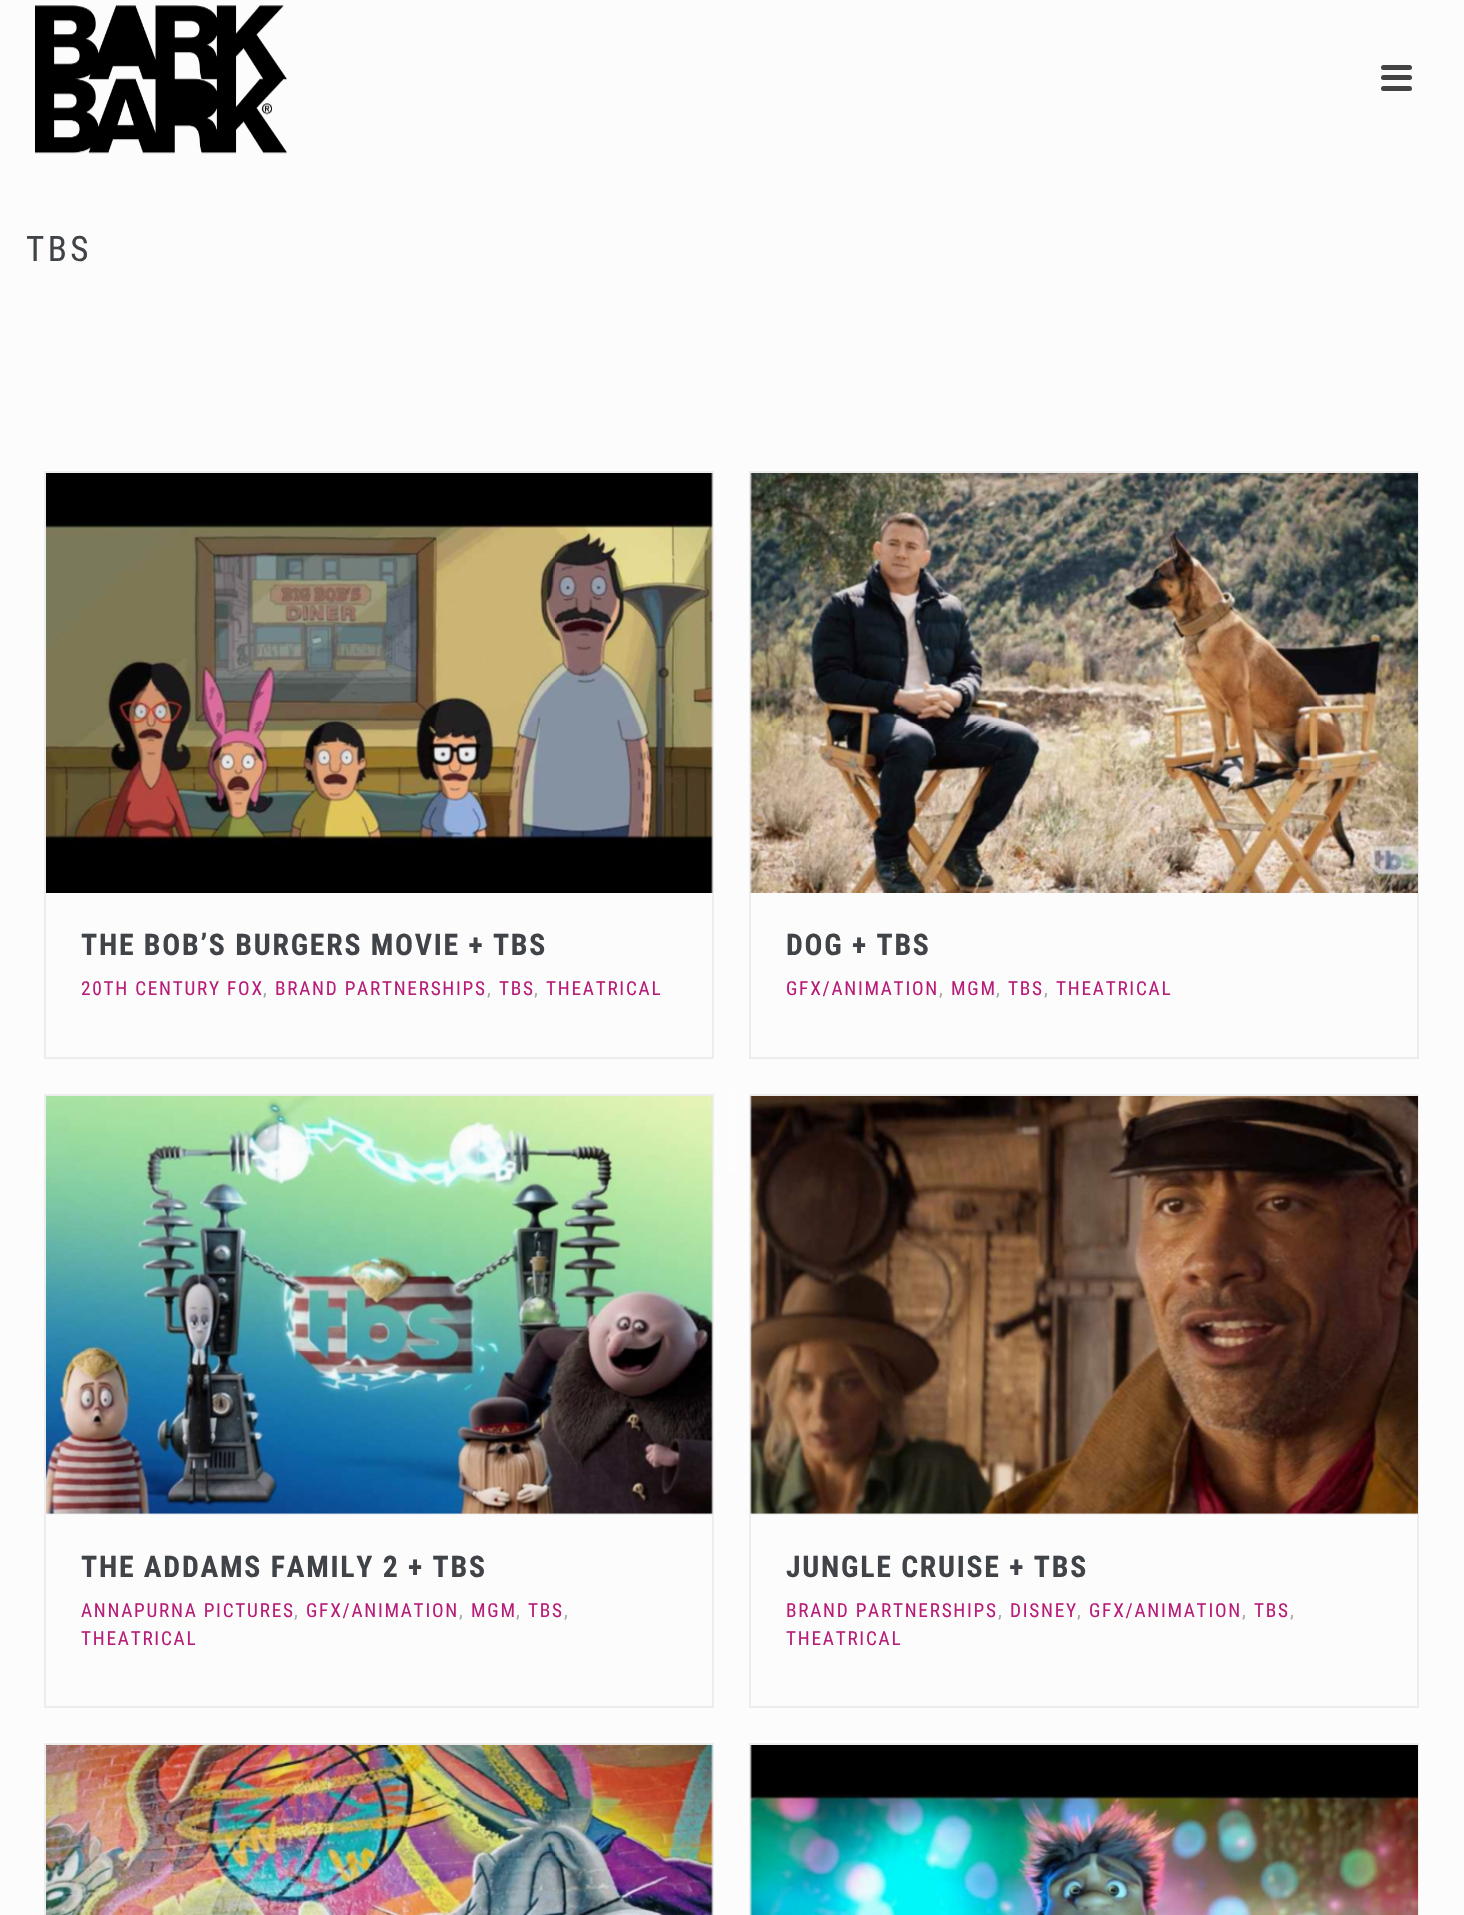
void draw(SkCanvas* canvas) {
	SkPaint paint;
	paint.setAntiAlias(true);
	auto spacedText = [&](const char* s, float x, float y, const SkFont& font, const SkPaint& ink, float letter, float word) {
		std::vector<SkGlyphID> glyphs(font.countText(s, strlen(s), SkTextEncoding::kUTF8));
		std::vector<float> xs(glyphs.size());
		font.textToGlyphs(s, strlen(s), SkTextEncoding::kUTF8, glyphs);
		font.getXPos(glyphs, xs, x);
		float extra = 0;
		for (size_t i = 0; i < glyphs.size(); i++) {
			xs[i] += extra;
			extra += letter + word * (glyphs[i] == font.unicharToGlyph(' '));
		}
		canvas->drawTextBlob(SkTextBlob::MakeFromPosHGlyphs(glyphs, xs, y, font), 0, 0, ink);
	};
	canvas->clear(0xfffcfcfc);
	canvas->drawImageRect(SkImages::DeferredFromEncodedData(SkData::MakeFromFileName("img1.png")), SkRect::MakeXYWH(35, 5, 252, 149), SkSamplingOptions());
	paint.setColor(0xff434343);
	canvas->drawRoundRect(SkRect::MakeXYWH(1381, 65, 31, 5), 2.5, 2.5, paint);
	canvas->drawRoundRect(SkRect::MakeXYWH(1381, 75, 31, 5), 2.5, 2.5, paint);
	canvas->drawRoundRect(SkRect::MakeXYWH(1381, 86, 31, 5), 2.5, 2.5, paint);
	SkFont f1(fontMgr->matchFamilyStyle("Roboto Condensed", SkFontStyle::Normal()), 35);
	f1.setSubpixel(true);
	paint.setColor(0xff404347);
	spacedText("TBS", 26, 261, f1, paint, 3.5, 0);
	paint.setStroke(true);
	paint.setStrokeWidth(2);
	paint.setColor(0xffededed);
	canvas->drawRect(SkRect::MakeXYWH(45, 472, 668, 586), paint);
	canvas->drawImageRect(SkImages::DeferredFromEncodedData(SkData::MakeFromFileName("img2.png")), SkRect::MakeXYWH(46, 473, 667, 420), SkSamplingOptions());
	SkFont f2(fontMgr->matchFamilyStyle("Roboto Condensed", SkFontStyle::Bold()), 29.75);
	f2.setSubpixel(true);
	paint.setStroke(false);
	paint.setColor(0xff404347);
	spacedText("THE BOB’S BURGERS MOVIE + TBS", 81, 955, f2, paint, 1.75, 0);
	SkFont f3(fontMgr->matchFamilyStyle("Roboto Condensed", SkFontStyle::Normal()), 19.25);
	f3.setSubpixel(true);
	paint.setColor(0xffb81e79);
	spacedText("20TH CENTURY FOX", 81, 995, f3, paint, 1.75, 0);
	paint.setColor(0xffa8a8a8);
	spacedText(",", 263, 995, f3, paint, 1.75, 0);
	paint.setColor(0xffb81e79);
	spacedText("BRAND PARTNERSHIPS", 275, 995, f3, paint, 1.75, 0);
	paint.setColor(0xffa8a8a8);
	spacedText(",", 487, 995, f3, paint, 1.75, 0);
	paint.setColor(0xffb81e79);
	spacedText("TBS", 499, 995, f3, paint, 1.75, 0);
	paint.setColor(0xffa8a8a8);
	spacedText(",", 534, 995, f3, paint, 1.75, 0);
	paint.setColor(0xffb81e79);
	spacedText("THEATRICAL", 546, 995, f3, paint, 1.75, 0);
	paint.setStroke(true);
	paint.setColor(0xffededed);
	canvas->drawRect(SkRect::MakeXYWH(750, 472, 668, 586), paint);
	canvas->drawImageRect(SkImages::DeferredFromEncodedData(SkData::MakeFromFileName("img3.png")), SkRect::MakeXYWH(750, 473, 668, 420), SkSamplingOptions());
	paint.setStroke(false);
	paint.setColor(0xff404347);
	spacedText("DOG + TBS", 786, 955, f2, paint, 1.75, 0);
	paint.setColor(0xffb81e79);
	spacedText("GFX/ANIMATION", 786, 995, f3, paint, 1.75, 0);
	paint.setColor(0xffa8a8a8);
	spacedText(",", 939, 995, f3, paint, 1.75, 0);
	paint.setColor(0xffb81e79);
	spacedText("MGM", 951, 995, f3, paint, 1.75, 0);
	paint.setColor(0xffa8a8a8);
	spacedText(",", 996, 995, f3, paint, 1.75, 0);
	paint.setColor(0xffb81e79);
	spacedText("TBS", 1008, 995, f3, paint, 1.75, 0);
	paint.setColor(0xffa8a8a8);
	spacedText(",", 1044, 995, f3, paint, 1.75, 0);
	paint.setColor(0xffb81e79);
	spacedText("THEATRICAL", 1056, 995, f3, paint, 1.75, 0);
	paint.setStroke(true);
	paint.setColor(0xffededed);
	canvas->drawRect(SkRect::MakeXYWH(45, 1095, 668, 612), paint);
	paint.setStroke(false);
	paint.setColor(0xffdedede);
	canvas->drawRect(SkRect::MakeXYWH(46, 1096, 666, 418), paint);
	canvas->drawImageRect(SkImages::DeferredFromEncodedData(SkData::MakeFromFileName("img4.png")), SkRect::MakeXYWH(46, 1096, 667, 419), SkSamplingOptions());
	paint.setColor(0xff404347);
	spacedText("THE ADDAMS FAMILY 2 + TBS", 81, 1577, f2, paint, 1.75, 0);
	paint.setColor(0xffb81e79);
	spacedText("ANNAPURNA PICTURES", 81, 1617, f3, paint, 1.75, 0);
	paint.setColor(0xffa8a8a8);
	spacedText(",", 294, 1617, f3, paint, 1.75, 0);
	paint.setColor(0xffb81e79);
	spacedText("GFX/ANIMATION", 306, 1617, f3, paint, 1.75, 0);
	paint.setColor(0xffa8a8a8);
	spacedText(",", 459, 1617, f3, paint, 1.75, 0);
	paint.setColor(0xffb81e79);
	spacedText("MGM", 471, 1617, f3, paint, 1.75, 0);
	paint.setColor(0xffa8a8a8);
	spacedText(",", 516, 1617, f3, paint, 1.75, 0);
	paint.setColor(0xffb81e79);
	spacedText("TBS", 528, 1617, f3, paint, 1.75, 0);
	paint.setColor(0xffa8a8a8);
	spacedText(",", 564, 1617, f3, paint, 1.75, 0);
	paint.setColor(0xffb81e79);
	spacedText("THEATRICAL", 81, 1645, f3, paint, 1.75, 0);
	paint.setStroke(true);
	paint.setColor(0xffededed);
	canvas->drawRect(SkRect::MakeXYWH(750, 1095, 668, 612), paint);
	paint.setStroke(false);
	paint.setColor(0xffdedede);
	canvas->drawRect(SkRect::MakeXYWH(751, 1096, 667, 418), paint);
	canvas->drawImageRect(SkImages::DeferredFromEncodedData(SkData::MakeFromFileName("img5.png")), SkRect::MakeXYWH(750, 1096, 668, 419), SkSamplingOptions());
	paint.setColor(0xff404347);
	spacedText("JUNGLE CRUISE + TBS", 786, 1577, f2, paint, 1.75, 0);
	paint.setColor(0xffb81e79);
	spacedText("BRAND PARTNERSHIPS", 786, 1617, f3, paint, 1.75, 0);
	paint.setColor(0xffa8a8a8);
	spacedText(",", 998, 1617, f3, paint, 1.75, 0);
	paint.setColor(0xffb81e79);
	spacedText("DISNEY", 1010, 1617, f3, paint, 1.75, 0);
	paint.setColor(0xffa8a8a8);
	spacedText(",", 1077, 1617, f3, paint, 1.75, 0);
	paint.setColor(0xffb81e79);
	spacedText("GFX/ANIMATION", 1089, 1617, f3, paint, 1.75, 0);
	paint.setColor(0xffa8a8a8);
	spacedText(",", 1242, 1617, f3, paint, 1.75, 0);
	paint.setColor(0xffb81e79);
	spacedText("TBS", 1254, 1617, f3, paint, 1.75, 0);
	paint.setColor(0xffa8a8a8);
	spacedText(",", 1290, 1617, f3, paint, 1.75, 0);
	paint.setColor(0xffb81e79);
	spacedText("THEATRICAL", 786, 1645, f3, paint, 1.75, 0);
	paint.setStroke(true);
	paint.setColor(0xffededed);
	canvas->drawRect(SkRect::MakeXYWH(45, 1744, 668, 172), paint);
	canvas->drawImageRect(SkImages::DeferredFromEncodedData(SkData::MakeFromFileName("img6.png")), SkRect::MakeXYWH(46, 1745, 667, 170), SkSamplingOptions());
	canvas->drawRect(SkRect::MakeXYWH(750, 1744, 668, 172), paint);
	canvas->drawImageRect(SkImages::DeferredFromEncodedData(SkData::MakeFromFileName("img7.png")), SkRect::MakeXYWH(750, 1745, 668, 170), SkSamplingOptions());
	paint.setStroke(false);
	paint.setColor(0xfffffcfe);
	canvas->drawRoundRect(SkRect::MakeXYWH(728, 1087, 9, 87), 4, 4, paint);
}
